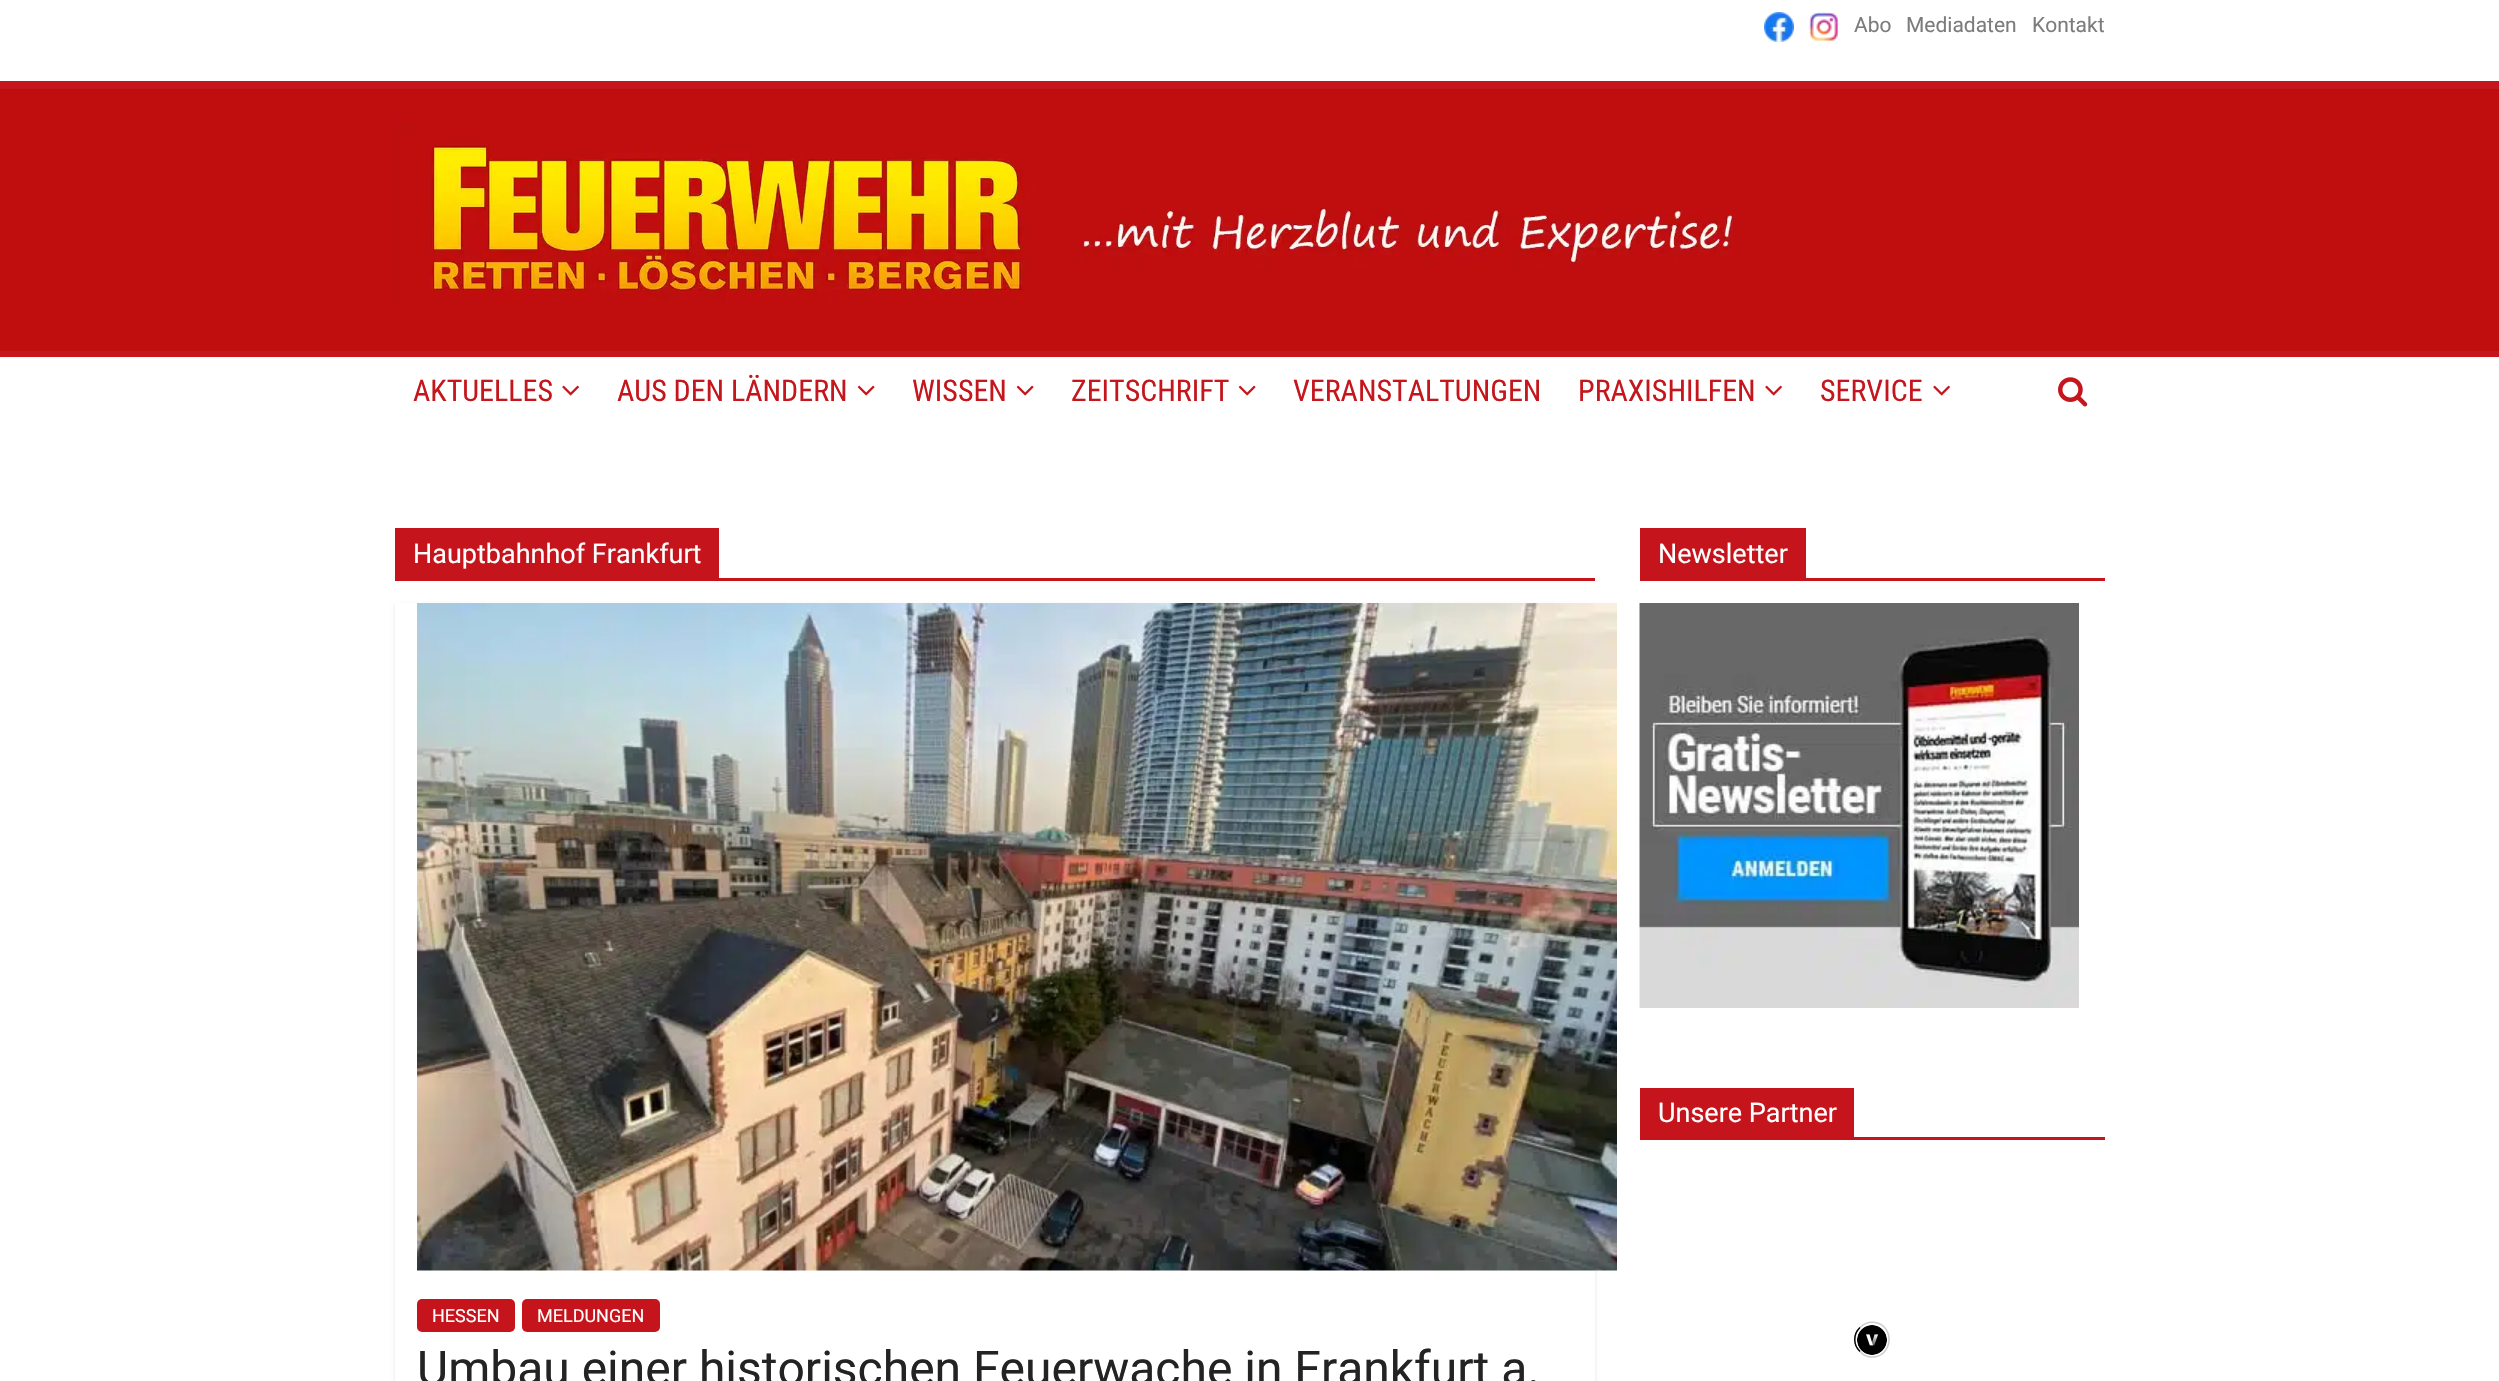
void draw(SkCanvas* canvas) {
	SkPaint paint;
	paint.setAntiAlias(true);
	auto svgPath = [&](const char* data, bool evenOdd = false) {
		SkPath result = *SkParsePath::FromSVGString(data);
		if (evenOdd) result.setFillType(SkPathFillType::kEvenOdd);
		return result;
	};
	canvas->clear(0xffffffff);
	paint.setColor(0xffc00e0e);
	canvas->drawRect(SkRect::MakeXYWH(0, 89, 2499, 262), paint);
	paint.setColor(0x1a000000);
	paint.setMaskFilter(SkMaskFilter::MakeBlur(kNormal_SkBlurStyle, 1.5));
	canvas->drawRect(SkRect::MakeXYWH(0, 0, 2499, 89), paint);
	paint.setMaskFilter(nullptr);
	paint.setColor(0xffffffff);
	canvas->drawRect(SkRect::MakeXYWH(0, 0, 2499, 81), paint);
	paint.setColor(0xffc4161c);
	canvas->drawRect(SkRect::MakeXYWH(0, 81, 2499, 8), paint);
	canvas->drawImageRect(SkImages::DeferredFromEncodedData(SkData::MakeFromFileName("img1.png")), SkRect::MakeXYWH(1764, 12, 30, 30), SkSamplingOptions());
	canvas->drawImageRect(SkImages::DeferredFromEncodedData(SkData::MakeFromFileName("img2.png")), SkRect::MakeXYWH(1809, 12, 30, 30), SkSamplingOptions());
	SkFont f1(fontMgr->matchFamilyStyle("Roboto", SkFontStyle::Normal()), 21);
	f1.setSubpixel(true);
	paint.setColor(0xff7c7c7c);
	canvas->drawString("Abo", 1854, 32, f1, paint);
	canvas->drawString("Mediadaten", 1906, 32, f1, paint);
	canvas->drawString("Kontakt", 2032, 32, f1, paint);
	canvas->drawImageRect(SkImages::DeferredFromEncodedData(SkData::MakeFromFileName("img3.png")), SkRect::MakeXYWH(394, 118, 1343, 183), SkSamplingOptions());
	paint.setColor(0xffc4161c);
	canvas->drawRect(SkRect::MakeXYWH(0, 351, 2499, 6), paint);
	SkFont f2(fontMgr->matchFamilyStyle("Roboto Condensed", SkFontStyle::Normal()), 30);
	f2.setSubpixel(true);
	canvas->drawString("AKTUELLES", 413, 401, f2, paint);
	canvas->drawImageRect(SkImages::DeferredFromEncodedData(SkData::MakeFromFileName("img4.png")), SkRect::MakeXYWH(562, 385, 17, 11), SkSamplingOptions());
	canvas->drawString("AUS DEN LÄNDERN", 617, 401, f2, paint);
	canvas->drawImageRect(SkImages::DeferredFromEncodedData(SkData::MakeFromFileName("img5.png")), SkRect::MakeXYWH(857, 385, 18, 11), SkSamplingOptions());
	canvas->drawString("WISSEN", 912, 401, f2, paint);
	canvas->drawImageRect(SkImages::DeferredFromEncodedData(SkData::MakeFromFileName("img5.png")), SkRect::MakeXYWH(1016, 385, 18, 11), SkSamplingOptions());
	canvas->drawString("ZEITSCHRIFT", 1071, 401, f2, paint);
	canvas->drawImageRect(SkImages::DeferredFromEncodedData(SkData::MakeFromFileName("img5.png")), SkRect::MakeXYWH(1238, 385, 18, 11), SkSamplingOptions());
	canvas->drawString("VERANSTALTUNGEN", 1293, 401, f2, paint);
	canvas->drawString("PRAXISHILFEN", 1578, 401, f2, paint);
	canvas->drawImageRect(SkImages::DeferredFromEncodedData(SkData::MakeFromFileName("img4.png")), SkRect::MakeXYWH(1765, 385, 17, 11), SkSamplingOptions());
	canvas->drawString("SERVICE", 1820, 401, f2, paint);
	canvas->drawImageRect(SkImages::DeferredFromEncodedData(SkData::MakeFromFileName("img4.png")), SkRect::MakeXYWH(1933, 385, 17, 11), SkSamplingOptions());
	canvas->drawImageRect(SkImages::DeferredFromEncodedData(SkData::MakeFromFileName("img6.png")), SkRect::MakeXYWH(2058, 377, 30, 30), SkSamplingOptions());
	paint.setColor(0xffc6141c);
	canvas->drawRect(SkRect::MakeXYWH(395, 578, 1200, 3), paint);
	canvas->drawRect(SkRect::MakeXYWH(395, 528, 324, 50), paint);
	SkFont f3(fontMgr->matchFamilyStyle("Roboto", SkFontStyle::Normal()), 27);
	f3.setSubpixel(true);
	paint.setColor(0xffffffff);
	canvas->drawString("Hauptbahnhof Frankfurt", 413, 563, f3, paint);
	canvas->save();
	canvas->clipPath(svgPath("M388 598H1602V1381H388ZM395 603H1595V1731H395Z", true), true);
	paint.setColor(0x1a000000);
	paint.setMaskFilter(SkMaskFilter::MakeBlur(kNormal_SkBlurStyle, 2));
	canvas->drawRect(SkRect::MakeXYWH(395, 605, 1200, 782), paint);
	paint.setMaskFilter(nullptr);
	canvas->restore();
	canvas->drawImageRect(SkImages::DeferredFromEncodedData(SkData::MakeFromFileName("img7.png")), SkRect::MakeXYWH(417, 603, 1200, 668), SkSamplingOptions());
	paint.setColor(0xffc6141c);
	canvas->drawRoundRect(SkRect::MakeXYWH(417, 1299, 98, 33), 5, 5, paint);
	SkFont f4(fontMgr->matchFamilyStyle("Roboto", SkFontStyle::Normal()), 18);
	f4.setSubpixel(true);
	paint.setColor(0xffffffff);
	canvas->drawString("HESSEN", 432, 1322, f4, paint);
	paint.setColor(0xffc6141c);
	canvas->drawRoundRect(SkRect::MakeXYWH(522, 1299, 138, 33), 5, 5, paint);
	paint.setColor(0xffffffff);
	canvas->drawString("MELDUNGEN", 537, 1322, f4, paint);
	SkFont f5(fontMgr->matchFamilyStyle("Roboto", SkFontStyle::Normal()), 48);
	f5.setSubpixel(true);
	paint.setColor(0xff232323);
	canvas->drawString("Umbau einer historischen Feuerwache in Frankfurt a.", 417, 1385, f5, paint);
	paint.setColor(0xffc6141c);
	canvas->drawRect(SkRect::MakeXYWH(1640, 578, 465, 3), paint);
	canvas->drawRect(SkRect::MakeXYWH(1640, 528, 166, 50), paint);
	paint.setColor(0xffffffff);
	canvas->drawString("Newsletter", 1658, 563, f3, paint);
	canvas->drawImageRect(SkImages::DeferredFromEncodedData(SkData::MakeFromFileName("img8.png")), SkRect::MakeXYWH(1639, 603, 440, 405), SkSamplingOptions());
	paint.setColor(0xffc6141c);
	canvas->drawRect(SkRect::MakeXYWH(1640, 1137, 465, 3), paint);
	canvas->drawRect(SkRect::MakeXYWH(1640, 1088, 214, 49), paint);
	paint.setColor(0xffffffff);
	canvas->drawString("Unsere Partner", 1658, 1122, f3, paint);
	canvas->drawImageRect(SkImages::DeferredFromEncodedData(SkData::MakeFromFileName("img9.png")), SkRect::MakeXYWH(1857, 1325, 30, 30), SkSamplingOptions());
	paint.setStroke(true);
	paint.setStrokeWidth(1.5);
	paint.setColor(0xffcccccc);
	canvas->drawPath(svgPath("M1860 1327.5C1864 1323.5 1870 1321.5 1875.5 1322.5C1895.5 1326.5 1892.5 1357 1872 1357C1867.5 1357 1863 1355 1860 1351.5"), paint);
	paint.setColor(0xff000000);
	canvas->drawPath(svgPath("M1860 1351.5C1853 1345 1853 1334 1860 1327.5"), paint);
}
